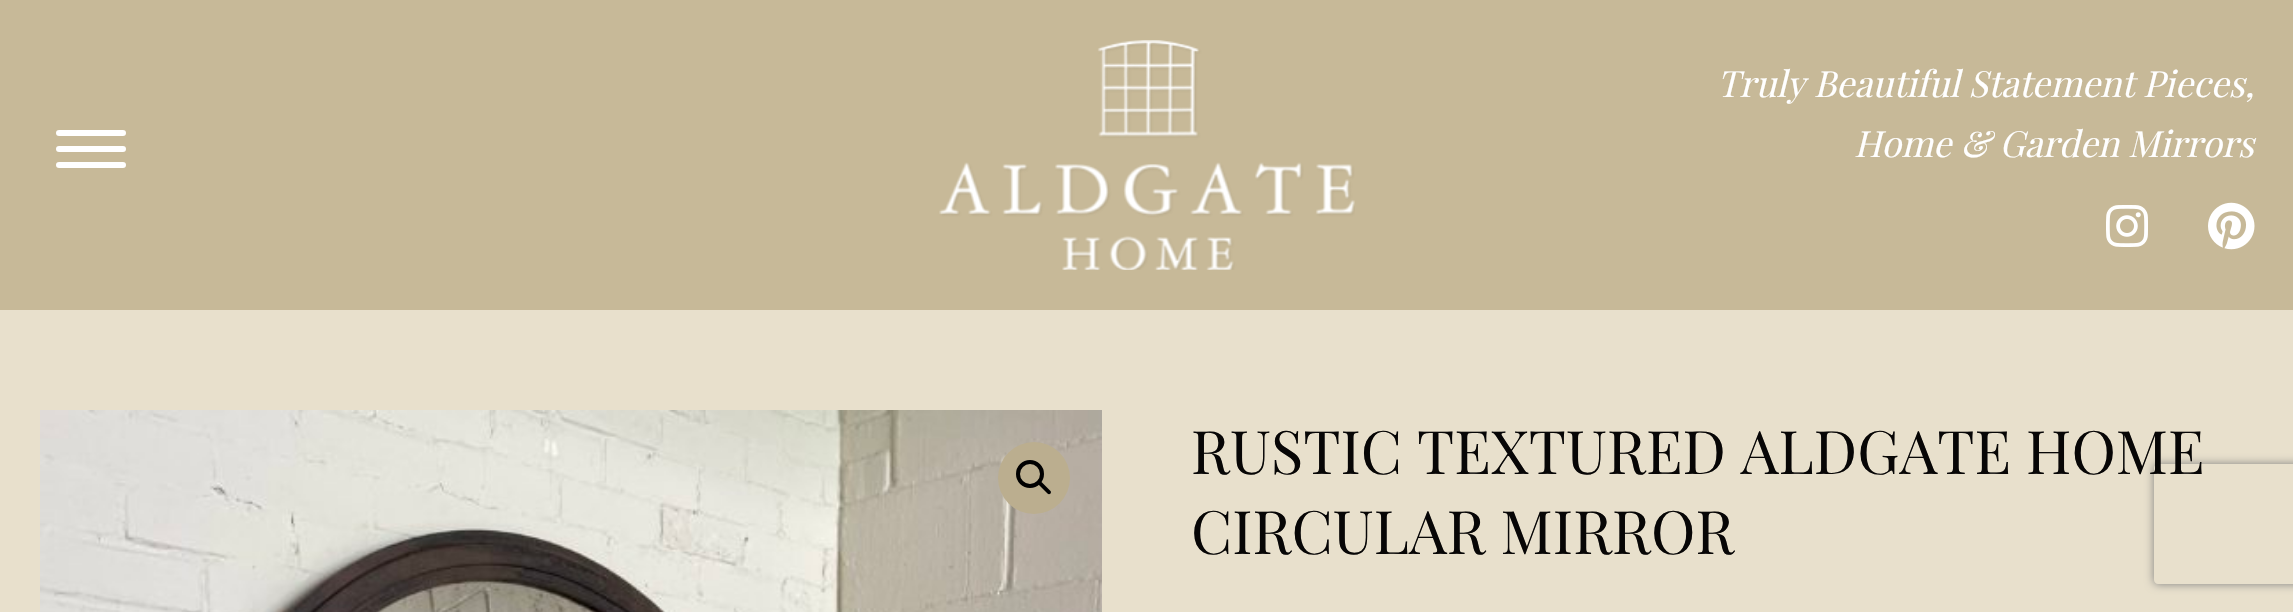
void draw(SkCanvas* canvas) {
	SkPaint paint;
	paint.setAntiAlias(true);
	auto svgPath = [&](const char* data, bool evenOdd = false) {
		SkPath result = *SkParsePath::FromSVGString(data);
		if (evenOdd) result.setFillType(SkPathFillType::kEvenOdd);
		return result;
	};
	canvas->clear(0xffe8e0cc);
	paint.setColor(0xffc7b998);
	canvas->drawRect(SkRect::MakeXYWH(0, 0, 2293, 310), paint);
	paint.setColor(0xffffffff);
	canvas->drawRoundRect(SkRect::MakeXYWH(56, 130, 70, 6), 3, 3, paint);
	canvas->drawRoundRect(SkRect::MakeXYWH(56, 146, 70, 6), 3, 3, paint);
	canvas->drawRoundRect(SkRect::MakeXYWH(56, 162, 70, 6), 3, 3, paint);
	canvas->drawImageRect(SkImages::DeferredFromEncodedData(SkData::MakeFromFileName("img1.png")), SkRect::MakeXYWH(939, 40, 416, 230), SkSamplingOptions());
	SkFont f1(fontMgr->matchFamilyStyle("Playfair Display", SkFontStyle::Italic()), 36);
	f1.setSubpixel(true);
	canvas->drawString("Truly Beautiful Statement Pieces,", 1717, 97, f1, paint);
	canvas->drawString("Home & Garden Mirrors", 1854, 157, f1, paint);
	canvas->drawImageRect(SkImages::DeferredFromEncodedData(SkData::MakeFromFileName("img2.png")), SkRect::MakeXYWH(2106, 205, 42, 42), SkSamplingOptions());
	canvas->drawImageRect(SkImages::DeferredFromEncodedData(SkData::MakeFromFileName("img3.png")), SkRect::MakeXYWH(2208, 202, 47, 48), SkSamplingOptions());
	canvas->drawImageRect(SkImages::DeferredFromEncodedData(SkData::MakeFromFileName("img4.png")), SkRect::MakeXYWH(40, 410, 1062, 202), SkSamplingOptions());
	paint.setColor(0xffbbae8f);
	canvas->drawCircle(1034, 478, 36, paint);
	paint.setStroke(true);
	paint.setStrokeWidth(4);
	paint.setColor(0xff000000);
	canvas->drawCircle(1030, 474, 12, paint);
	paint.setStroke(false);
	canvas->drawPath(svgPath("M1039 482.5C1040 481.5 1041 481.5 1042 482.5L1050.5 491C1051 491.5 1051 493 1050.5 493.5C1049.5 494.5 1048.5 494.5 1047.5 493.5L1039 485C1038.5 484.5 1038.5 483 1039 482.5Z"), paint);
	canvas->save();
	canvas->clipPath(svgPath("M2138 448H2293V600H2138ZM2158 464H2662C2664 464 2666 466 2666 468V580C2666 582 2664 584 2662 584H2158C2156 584 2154 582 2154 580V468C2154 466 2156 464 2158 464Z", true), true);
	paint.setColor(0xff808080);
	paint.setMaskFilter(SkMaskFilter::MakeBlur(kNormal_SkBlurStyle, 5));
	canvas->drawRoundRect(SkRect::MakeXYWH(2154, 464, 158, 120), 4, 4, paint);
	paint.setMaskFilter(nullptr);
	canvas->restore();
	SkFont f2(fontMgr->matchFamilyStyle("Playfair Display", SkFontStyle::Normal()), 60);
	f2.setSubpixel(true);
	paint.setColor(0xff070606);
	canvas->drawString("RUSTIC TEXTURED ALDGATE HOME", 1191, 474, f2, paint);
	canvas->drawString("CIRCULAR MIRROR", 1191, 554, f2, paint);
}
